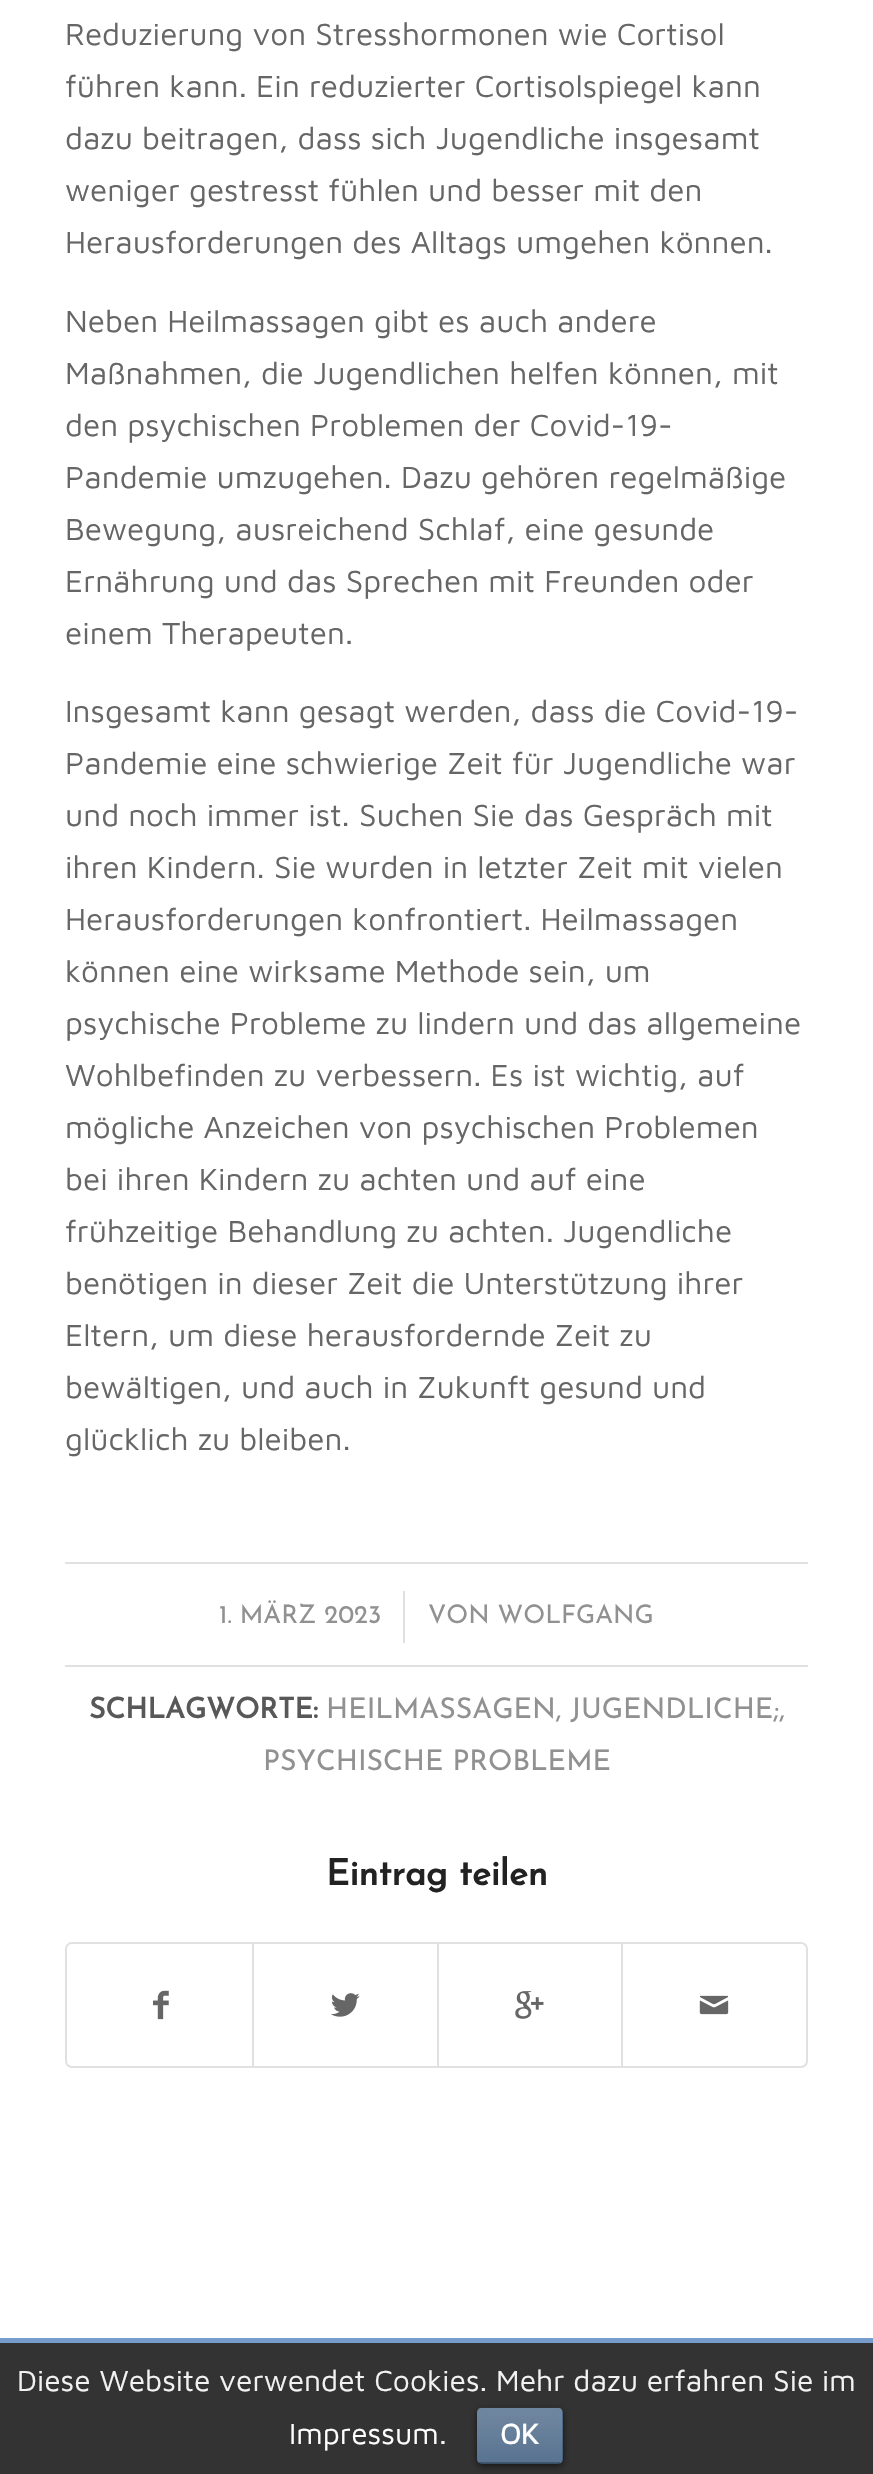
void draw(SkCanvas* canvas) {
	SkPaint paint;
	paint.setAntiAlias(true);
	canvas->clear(0xffffffff);
	SkFont f1(fontMgr->matchFamilyStyle("Maven Pro", SkFontStyle::Normal()), 31.5);
	f1.setSubpixel(true);
	paint.setColor(0xff666666);
	canvas->drawString("Reduzierung von Stresshormonen wie Cortisol", 65, 45, f1, paint);
	canvas->drawString("führen kann. Ein reduzierter Cortisolspiegel kann", 65, 97, f1, paint);
	canvas->drawString("dazu beitragen, dass sich Jugendliche insgesamt", 65, 149, f1, paint);
	canvas->drawString("weniger gestresst fühlen und besser mit den", 65, 201, f1, paint);
	canvas->drawString("Herausforderungen des Alltags umgehen können.", 65, 253, f1, paint);
	canvas->drawString("Neben Heilmassagen gibt es auch andere", 65, 332, f1, paint);
	canvas->drawString("Maßnahmen, die Jugendlichen helfen können, mit", 65, 384, f1, paint);
	canvas->drawString("den psychischen Problemen der Covid-19-", 65, 436, f1, paint);
	canvas->drawString("Pandemie umzugehen. Dazu gehören regelmäßige", 65, 488, f1, paint);
	canvas->drawString("Bewegung, ausreichend Schlaf, eine gesunde", 65, 540, f1, paint);
	canvas->drawString("Ernährung und das Sprechen mit Freunden oder", 65, 592, f1, paint);
	canvas->drawString("einem Therapeuten.", 65, 644, f1, paint);
	canvas->drawString("Insgesamt kann gesagt werden, dass die Covid-19-", 65, 722, f1, paint);
	canvas->drawString("Pandemie eine schwierige Zeit für Jugendliche war", 65, 774, f1, paint);
	canvas->drawString("und noch immer ist. Suchen Sie das Gespräch mit", 65, 826, f1, paint);
	canvas->drawString("ihren Kindern. Sie wurden in letzter Zeit mit vielen", 65, 878, f1, paint);
	canvas->drawString("Herausforderungen konfrontiert. Heilmassagen", 65, 930, f1, paint);
	canvas->drawString("können eine wirksame Methode sein, um", 65, 982, f1, paint);
	canvas->drawString("psychische Probleme zu lindern und das allgemeine", 65, 1034, f1, paint);
	canvas->drawString("Wohlbefinden zu verbessern. Es ist wichtig, auf", 65, 1086, f1, paint);
	canvas->drawString("mögliche Anzeichen von psychischen Problemen", 65, 1138, f1, paint);
	canvas->drawString("bei ihren Kindern zu achten und auf eine", 65, 1190, f1, paint);
	canvas->drawString("frühzeitige Behandlung zu achten. Jugendliche", 65, 1242, f1, paint);
	canvas->drawString("benötigen in dieser Zeit die Unterstützung ihrer", 65, 1294, f1, paint);
	canvas->drawString("Eltern, um diese herausfordernde Zeit zu", 65, 1346, f1, paint);
	canvas->drawString("bewältigen, und auch in Zukunft gesund und", 65, 1398, f1, paint);
	canvas->drawString("glücklich zu bleiben.", 65, 1450, f1, paint);
	paint.setColor(0xffe1e1e1);
	canvas->drawRect(SkRect::MakeXYWH(65, 1562, 743, 2), paint);
	canvas->drawRect(SkRect::MakeXYWH(65, 1665, 743, 2), paint);
	SkFont f2(fontMgr->matchFamilyStyle("Josefin Sans", SkFontStyle(100, SkFontStyle::kNormal_Width, SkFontStyle::kUpright_Slant)), 25.5);
	f2.setSubpixel(true);
	paint.setColor(0xff919191);
	canvas->drawString("1. MÄRZ 2023", 219, 1623, f2, paint);
	paint.setColor(0xffe1e1e1);
	canvas->drawRect(SkRect::MakeXYWH(403, 1591, 2, 52), paint);
	paint.setColor(0xff919191);
	canvas->drawString("VON WOLFGANG", 428, 1623, f2, paint);
	SkFont f3(fontMgr->matchFamilyStyle("Josefin Sans", SkFontStyle::Bold()), 28.4);
	f3.setSubpixel(true);
	paint.setColor(0xff585858);
	canvas->drawString("SCHLAGWORTE:", 89, 1718, f3, paint);
	SkFont f4(fontMgr->matchFamilyStyle("Josefin Sans", SkFontStyle(100, SkFontStyle::kNormal_Width, SkFontStyle::kUpright_Slant)), 28.4);
	f4.setSubpixel(true);
	paint.setColor(0xff919191);
	canvas->drawString("HEILMASSAGEN, JUGENDLICHE;,", 326, 1718, f4, paint);
	canvas->drawString("PSYCHISCHE PROBLEME", 263, 1770, f4, paint);
	SkFont f5(fontMgr->matchFamilyStyle("Josefin Sans", SkFontStyle::Bold()), 36);
	f5.setSubpixel(true);
	paint.setColor(0xff222222);
	canvas->drawString("Eintrag teilen", 326, 1885, f5, paint);
	paint.setStroke(true);
	paint.setStrokeWidth(2);
	paint.setColor(0xffe1e1e1);
	canvas->drawRoundRect(SkRect::MakeXYWH(66, 1943, 741, 124), 6, 6, paint);
	canvas->drawImageRect(SkImages::DeferredFromEncodedData(SkData::MakeFromFileName("img1.png")), SkRect::MakeXYWH(153, 1990, 16, 30), SkSamplingOptions());
	paint.setStroke(false);
	canvas->drawRect(SkRect::MakeXYWH(252, 1944, 2, 122), paint);
	canvas->drawImageRect(SkImages::DeferredFromEncodedData(SkData::MakeFromFileName("img2.png")), SkRect::MakeXYWH(331, 1993, 29, 24), SkSamplingOptions());
	canvas->drawRect(SkRect::MakeXYWH(437, 1944, 2, 122), paint);
	canvas->drawImageRect(SkImages::DeferredFromEncodedData(SkData::MakeFromFileName("img3.png")), SkRect::MakeXYWH(515, 1991, 29, 28), SkSamplingOptions());
	canvas->drawRect(SkRect::MakeXYWH(621, 1944, 2, 122), paint);
	canvas->drawImageRect(SkImages::DeferredFromEncodedData(SkData::MakeFromFileName("img4.png")), SkRect::MakeXYWH(699, 1995, 30, 20), SkSamplingOptions());
	paint.setColor(0xff333333);
	canvas->drawRect(SkRect::MakeXYWH(0, 2343, 873, 131), paint);
	paint.setColor(0xff769ccc);
	canvas->drawRect(SkRect::MakeXYWH(0, 2338, 873, 5), paint);
	SkFont f6(fontMgr->matchFamilyStyle("Maven Pro", SkFontStyle::Normal()), 30);
	f6.setSubpixel(true);
	paint.setColor(0xfff2f2f2);
	canvas->drawString("Diese Website verwendet Cookies. Mehr dazu erfahren Sie im", 17, 2391, f6, paint);
	paint.setColor(0xffffffff);
	canvas->drawString("Impressum", 289, 2444, f6, paint);
	paint.setColor(0xfff2f2f2);
	canvas->drawString(".", 439, 2444, f6, paint);
	paint.setColor(0x99000000);
	paint.setMaskFilter(SkMaskFilter::MakeBlur(kNormal_SkBlurStyle, 3.5));
	canvas->drawRoundRect(SkRect::MakeXYWH(477, 2410, 86, 56), 5, 5, paint);
	paint.setMaskFilter(nullptr);
	paint.setColor(0xff3e5d7f);
	canvas->drawRoundRect(SkRect::MakeXYWH(477, 2408, 86, 56), 5, 5, paint);
	canvas->drawImageRect(SkImages::DeferredFromEncodedData(SkData::MakeFromFileName("img5.png")), SkRect::MakeXYWH(477, 2407, 86, 57), SkSamplingOptions());
	paint.setColor(0x40000000);
	canvas->drawRect(SkRect::MakeXYWH(479, 2462, 81, 2), paint);
	SkFont f7(fontMgr->matchFamilyStyle("Maven Pro", SkFontStyle::Bold()), 29);
	f7.setSubpixel(true);
	paint.setColor(0xffffffff);
	canvas->drawString("OK", 500, 2444, f7, paint);
}
